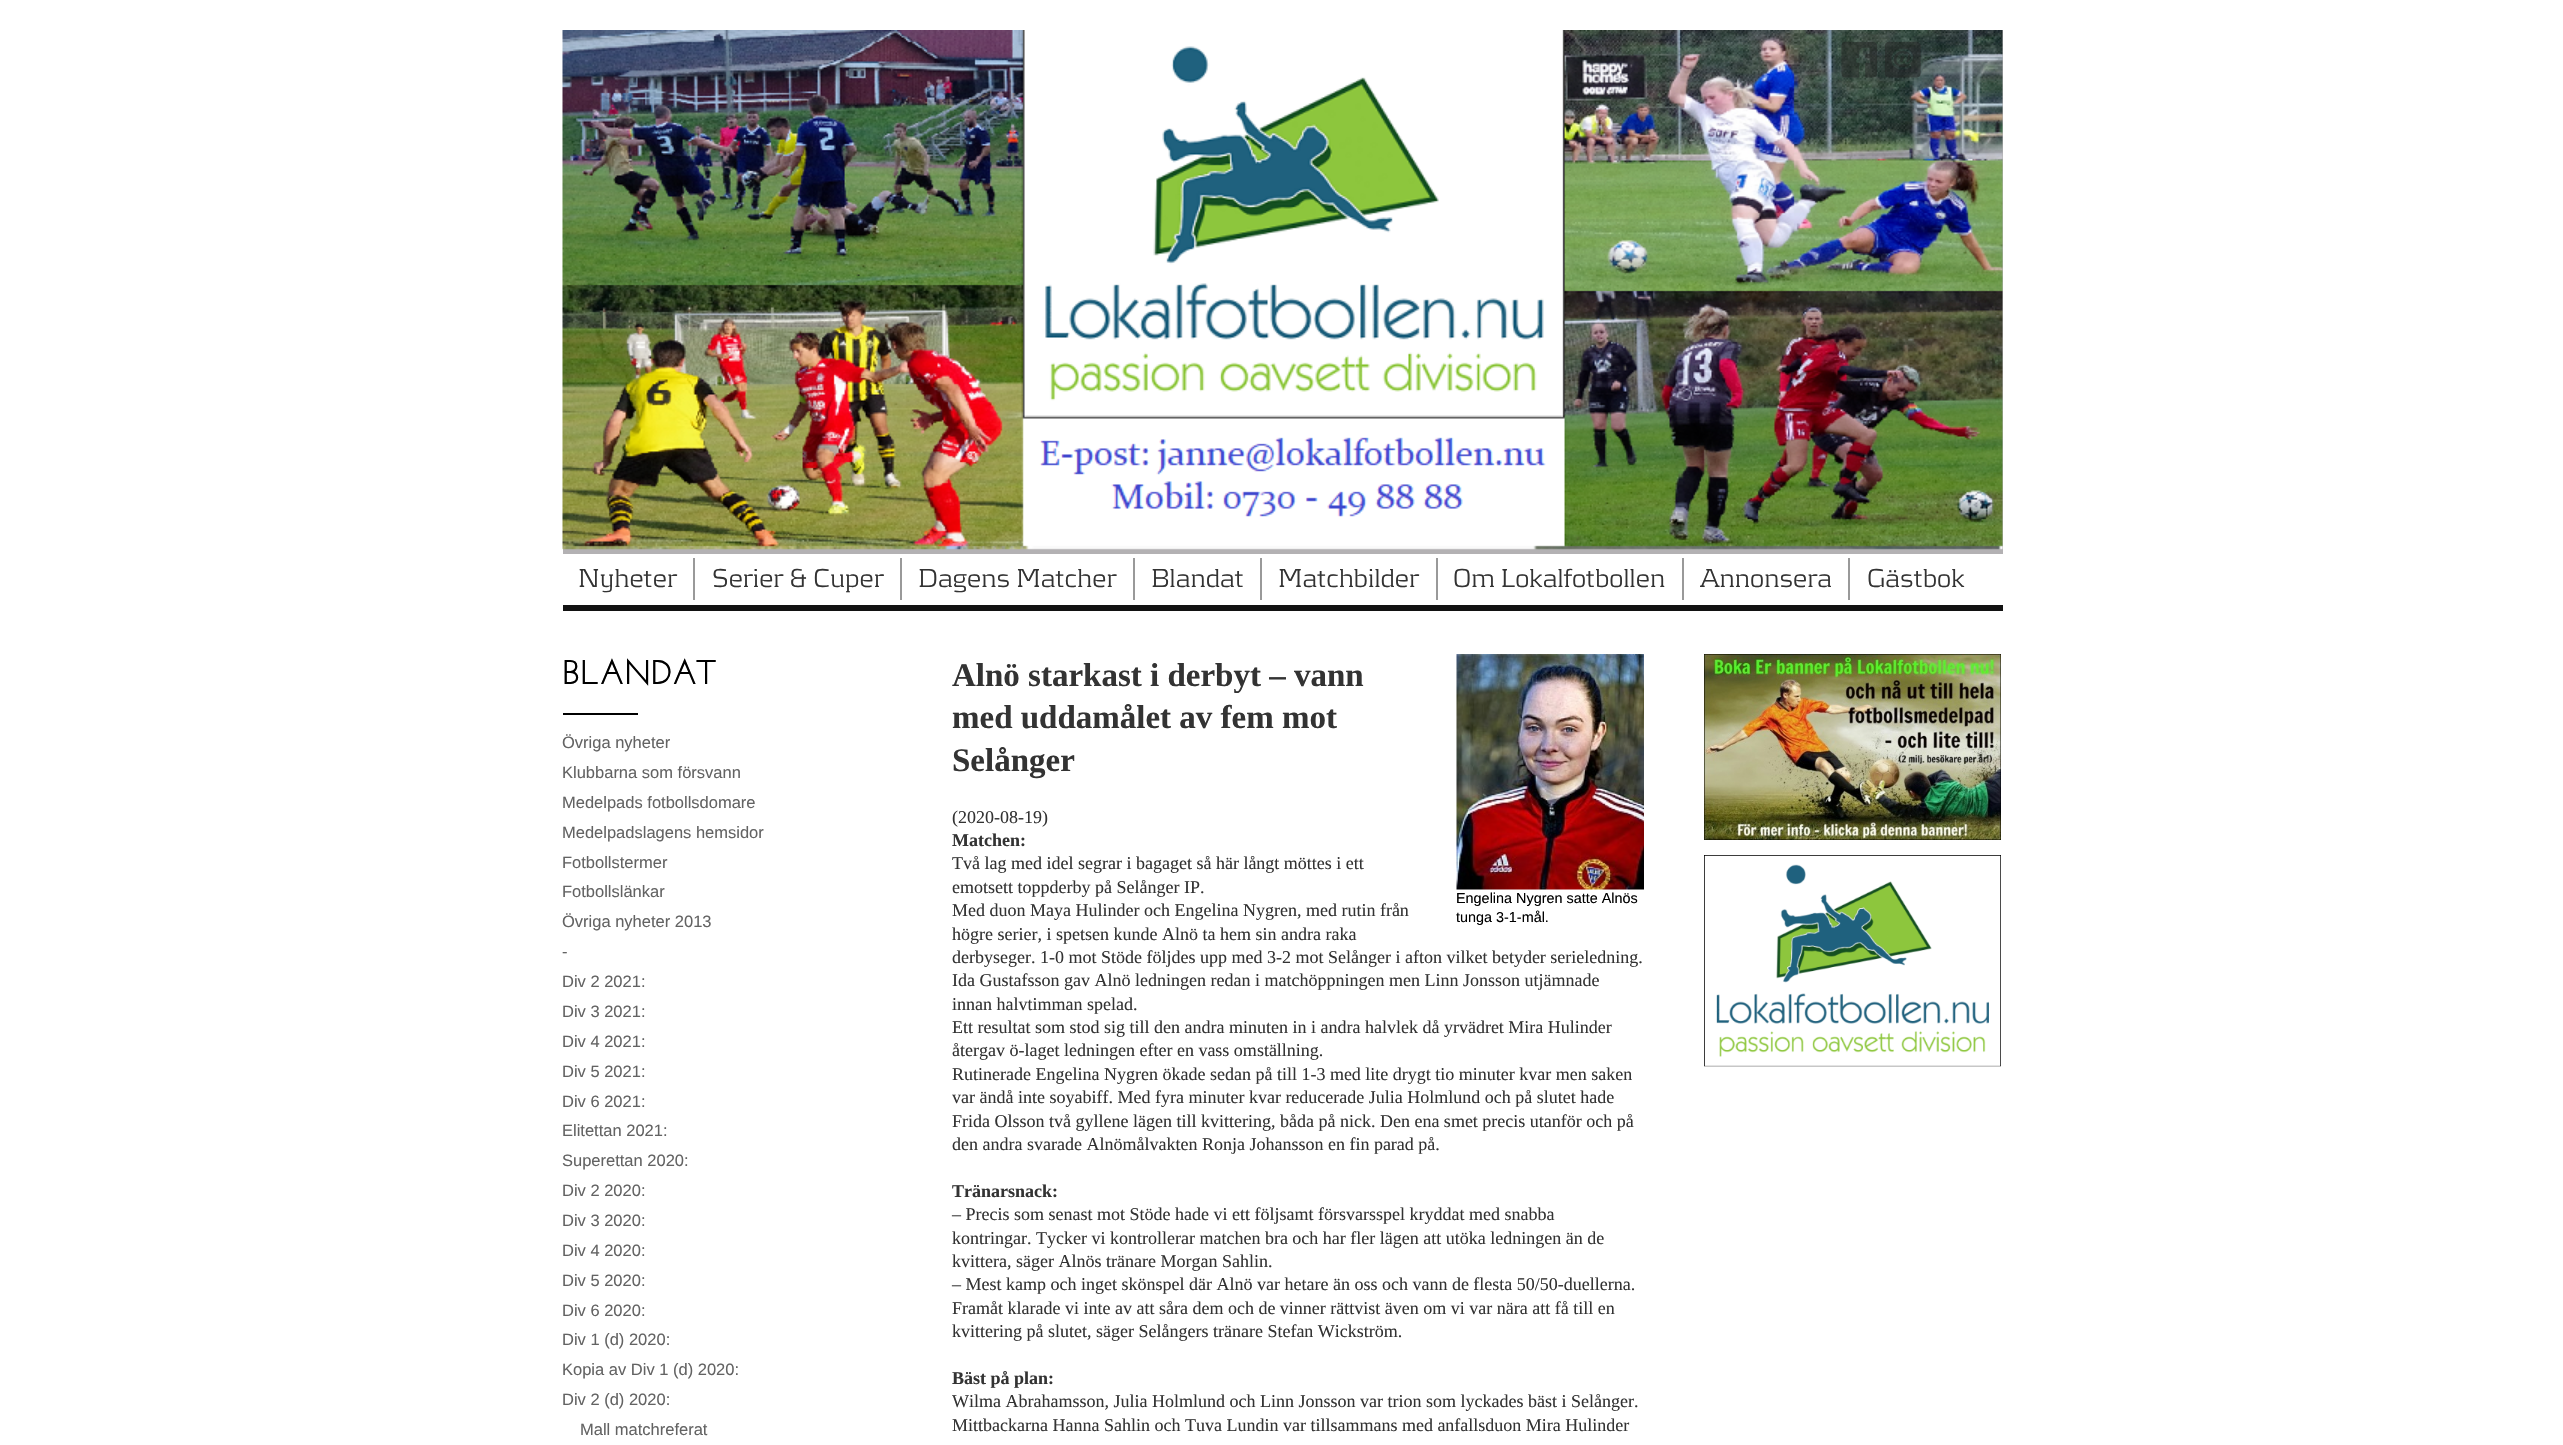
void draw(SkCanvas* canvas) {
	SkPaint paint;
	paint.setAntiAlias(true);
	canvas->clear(0xffffffff);
	paint.setColor(0xffb3b1b3);
	canvas->drawRect(SkRect::MakeXYWH(563, 30, 1440, 524), paint);
	canvas->drawImageRect(SkImages::DeferredFromEncodedData(SkData::MakeFromFileName("img1.png")), SkRect::MakeXYWH(562, 30, 1441, 520), SkSamplingOptions());
	canvas->drawImageRect(SkImages::DeferredFromEncodedData(SkData::MakeFromFileName("img2.png")), SkRect::MakeXYWH(1841, 41, 36, 37), SkSamplingOptions());
	canvas->drawImageRect(SkImages::DeferredFromEncodedData(SkData::MakeFromFileName("img3.png")), SkRect::MakeXYWH(1885, 41, 36, 37), SkSamplingOptions());
	SkFont f1(fontMgr->matchFamilyStyle("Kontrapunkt", SkFontStyle(300, SkFontStyle::kNormal_Width, SkFontStyle::kUpright_Slant)), 27);
	f1.setSubpixel(true);
	paint.setColor(0xff333333);
	canvas->drawString("Nyheter", 578, 587, f1, paint);
	paint.setColor(0xff999999);
	canvas->drawRect(SkRect::MakeXYWH(693, 558, 2, 42), paint);
	paint.setColor(0xff333333);
	canvas->drawString("Serier & Cuper", 712, 587, f1, paint);
	paint.setColor(0xff999999);
	canvas->drawRect(SkRect::MakeXYWH(900, 558, 2, 42), paint);
	paint.setColor(0xff333333);
	canvas->drawString("Dagens Matcher", 918, 587, f1, paint);
	paint.setColor(0xff999999);
	canvas->drawRect(SkRect::MakeXYWH(1133, 558, 2, 42), paint);
	paint.setColor(0xff333333);
	canvas->drawString("Blandat", 1151, 587, f1, paint);
	paint.setColor(0xff999999);
	canvas->drawRect(SkRect::MakeXYWH(1260, 558, 2, 42), paint);
	paint.setColor(0xff333333);
	canvas->drawString("Matchbilder", 1278, 587, f1, paint);
	paint.setColor(0xff999999);
	canvas->drawRect(SkRect::MakeXYWH(1436, 558, 2, 42), paint);
	paint.setColor(0xff333333);
	canvas->drawString("Om Lokalfotbollen", 1453, 587, f1, paint);
	paint.setColor(0xff999999);
	canvas->drawRect(SkRect::MakeXYWH(1682, 558, 2, 42), paint);
	paint.setColor(0xff333333);
	canvas->drawString("Annonsera", 1700, 587, f1, paint);
	paint.setColor(0xff999999);
	canvas->drawRect(SkRect::MakeXYWH(1848, 558, 2, 42), paint);
	paint.setColor(0xff333333);
	canvas->drawString("Gästbok", 1867, 587, f1, paint);
	paint.setColor(0xff121212);
	canvas->drawRect(SkRect::MakeXYWH(563, 605, 1440, 6), paint);
	SkFont f2(fontMgr->matchFamilyStyle("Josefin Sans", SkFontStyle::Bold()), 33);
	f2.setSubpixel(true);
	paint.setColor(0xff000000);
	canvas->drawString("BLANDAT", 562, 684, f2, paint);
	canvas->drawRect(SkRect::MakeXYWH(563, 713, 75, 2), paint);
	SkFont f3(fontMgr->matchFamilyStyle("Liberation Sans", SkFontStyle::Normal()), 16.5);
	f3.setSubpixel(true);
	paint.setColor(0xff636363);
	canvas->drawString("Övriga nyheter", 562, 748, f3, paint);
	canvas->drawString("Klubbarna som försvann", 562, 778, f3, paint);
	canvas->drawString("Medelpads fotbollsdomare", 562, 808, f3, paint);
	canvas->drawString("Medelpadslagens hemsidor", 562, 838, f3, paint);
	canvas->drawString("Fotbollstermer", 562, 868, f3, paint);
	canvas->drawString("Fotbollslänkar", 562, 897, f3, paint);
	canvas->drawString("Övriga nyheter 2013", 562, 927, f3, paint);
	canvas->drawString("-", 562, 957, f3, paint);
	canvas->drawString("Div 2 2021:", 562, 987, f3, paint);
	canvas->drawString("Div 3 2021:", 562, 1017, f3, paint);
	canvas->drawString("Div 4 2021:", 562, 1047, f3, paint);
	canvas->drawString("Div 5 2021:", 562, 1077, f3, paint);
	canvas->drawString("Div 6 2021:", 562, 1107, f3, paint);
	canvas->drawString("Elitettan 2021:", 562, 1136, f3, paint);
	canvas->drawString("Superettan 2020:", 562, 1166, f3, paint);
	canvas->drawString("Div 2 2020:", 562, 1196, f3, paint);
	canvas->drawString("Div 3 2020:", 562, 1226, f3, paint);
	canvas->drawString("Div 4 2020:", 562, 1256, f3, paint);
	canvas->drawString("Div 5 2020:", 562, 1286, f3, paint);
	canvas->drawString("Div 6 2020:", 562, 1316, f3, paint);
	canvas->drawString("Div 1 (d) 2020:", 562, 1345, f3, paint);
	canvas->drawString("Kopia av Div 1 (d) 2020:", 562, 1375, f3, paint);
	canvas->drawString("Div 2 (d) 2020:", 562, 1405, f3, paint);
	canvas->drawString("Mall matchreferat", 580, 1435, f3, paint);
	SkFont f4(fontMgr->matchFamilyStyle("Liberation Serif", SkFontStyle::Bold()), 33);
	f4.setSubpixel(true);
	paint.setColor(0xff333333);
	canvas->drawString("Alnö starkast i derbyt – vann", 952, 686, f4, paint);
	canvas->drawString("med uddamålet av fem mot", 952, 728, f4, paint);
	canvas->drawString("Selånger", 952, 771, f4, paint);
	SkFont f5(fontMgr->matchFamilyStyle("Liberation Serif", SkFontStyle::Normal()), 18);
	f5.setSubpixel(true);
	canvas->drawString("(2020-08-19)", 952, 823, f5, paint);
	SkFont f6(fontMgr->matchFamilyStyle("Liberation Serif", SkFontStyle::Bold()), 18);
	f6.setSubpixel(true);
	canvas->drawString("Matchen:", 952, 846, f6, paint);
	canvas->drawString("Två lag med idel segrar i bagaget så här långt möttes i ett", 952, 869, f5, paint);
	canvas->drawString("emotsett toppderby på Selånger IP.", 952, 893, f5, paint);
	canvas->drawString("Med duon Maya Hulinder och Engelina Nygren, med rutin från", 952, 916, f5, paint);
	canvas->drawString("högre serier, i spetsen kunde Alnö ta hem sin andra raka", 952, 940, f5, paint);
	canvas->drawString("derbyseger. 1-0 mot Stöde följdes upp med 3-2 mot Selånger i afton vilket betyder serieledning.", 952, 963, f5, paint);
	canvas->drawString("Ida Gustafsson gav Alnö ledningen redan i matchöppningen men Linn Jonsson utjämnade", 952, 986, f5, paint);
	canvas->drawString("innan halvtimman spelad.", 952, 1010, f5, paint);
	canvas->drawString("Ett resultat som stod sig till den andra minuten in i andra halvlek då yrvädret Mira Hulinder", 952, 1033, f5, paint);
	canvas->drawString("återgav ö-laget ledningen efter en vass omställning.", 952, 1056, f5, paint);
	canvas->drawString("Rutinerade Engelina Nygren ökade sedan på till 1-3 med lite drygt tio minuter kvar men saken", 952, 1080, f5, paint);
	canvas->drawString("var ändå inte soyabiff. Med fyra minuter kvar reducerade Julia Holmlund och på slutet hade", 952, 1103, f5, paint);
	canvas->drawString("Frida Olsson två gyllene lägen till kvittering, båda på nick. Den ena smet precis utanför och på", 952, 1127, f5, paint);
	canvas->drawString("den andra svarade Alnömålvakten Ronja Johansson en fin parad på.", 952, 1150, f5, paint);
	canvas->drawString("Tränarsnack:", 952, 1197, f6, paint);
	canvas->drawString("– Precis som senast mot Stöde hade vi ett följsamt försvarsspel kryddat med snabba", 952, 1220, f5, paint);
	canvas->drawString("kontringar. Tycker vi kontrollerar matchen bra och har fler lägen att utöka ledningen än de", 952, 1244, f5, paint);
	canvas->drawString("kvittera, säger Alnös tränare Morgan Sahlin.", 952, 1267, f5, paint);
	canvas->drawString("– Mest kamp och inget skönspel där Alnö var hetare än oss och vann de flesta 50/50-duellerna.", 952, 1290, f5, paint);
	canvas->drawString("Framåt klarade vi inte av att såra dem och de vinner rättvist även om vi var nära att få till en", 952, 1314, f5, paint);
	canvas->drawString("kvittering på slutet, säger Selångers tränare Stefan Wickström.", 952, 1337, f5, paint);
	canvas->drawString("Bäst på plan:", 952, 1384, f6, paint);
	canvas->drawString("Wilma Abrahamsson, Julia Holmlund och Linn Jonsson var trion som lyckades bäst i Selånger.", 952, 1407, f5, paint);
	canvas->drawString("Mittbackarna Hanna Sahlin och Tuva Lundin var tillsammans med anfallsduon Mira Hulinder", 952, 1431, f5, paint);
	canvas->drawImageRect(SkImages::DeferredFromEncodedData(SkData::MakeFromFileName("img4.png")), SkRect::MakeXYWH(1456, 654, 188, 236), SkSamplingOptions());
	SkFont f7(fontMgr->matchFamilyStyle("Liberation Sans", SkFontStyle::Normal()), 14.4);
	f7.setSubpixel(true);
	paint.setColor(0xff000000);
	canvas->drawString("Engelina Nygren satte Alnös", 1456, 903, f7, paint);
	canvas->drawString("tunga 3-1-mål.", 1456, 922, f7, paint);
	canvas->drawImageRect(SkImages::DeferredFromEncodedData(SkData::MakeFromFileName("img5.png")), SkRect::MakeXYWH(1704, 654, 297, 186), SkSamplingOptions());
	canvas->drawImageRect(SkImages::DeferredFromEncodedData(SkData::MakeFromFileName("img6.png")), SkRect::MakeXYWH(1704, 855, 297, 212), SkSamplingOptions());
}
